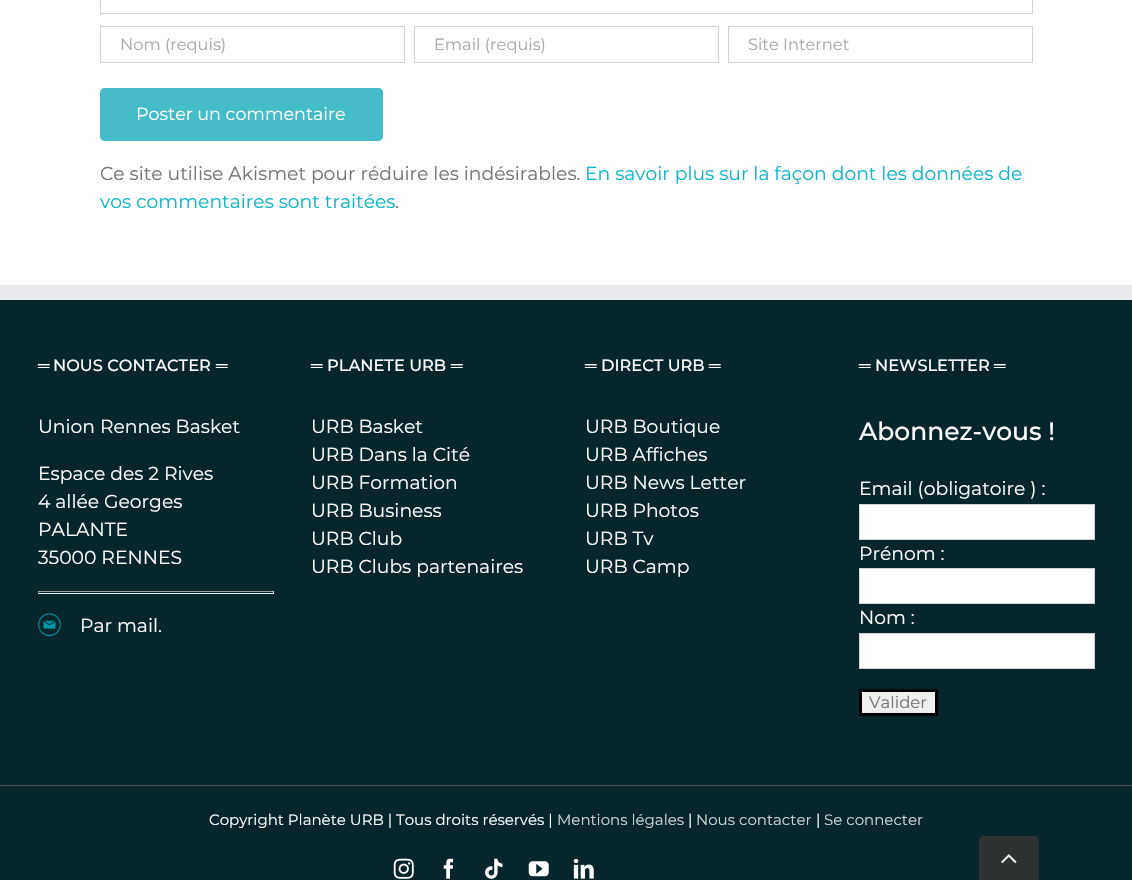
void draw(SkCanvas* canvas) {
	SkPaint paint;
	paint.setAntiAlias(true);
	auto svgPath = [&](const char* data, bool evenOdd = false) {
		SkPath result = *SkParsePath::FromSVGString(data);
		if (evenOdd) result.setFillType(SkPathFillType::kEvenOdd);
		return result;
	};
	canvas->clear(0xffffffff);
	paint.setStroke(true);
	paint.setStrokeWidth(1);
	paint.setColor(0xffd2d2d2);
	canvas->drawRect(SkRect::MakeXYWH(100.5, -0.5, 932, 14), paint);
	canvas->drawRect(SkRect::MakeXYWH(100.5, 26.5, 304, 36), paint);
	SkFont f1(fontMgr->matchFamilyStyle("Montserrat", SkFontStyle::Normal()), 16.25);
	f1.setSubpixel(true);
	paint.setStroke(false);
	paint.setColor(0xffaaa9a9);
	canvas->drawString("Nom (requis)", 120, 50, f1, paint);
	paint.setStroke(true);
	paint.setColor(0xffd2d2d2);
	canvas->drawRect(SkRect::MakeXYWH(414.5, 26.5, 304, 36), paint);
	paint.setStroke(false);
	paint.setColor(0xffaaa9a9);
	canvas->drawString("Email (requis)", 434, 50, f1, paint);
	paint.setStroke(true);
	paint.setColor(0xffd2d2d2);
	canvas->drawRect(SkRect::MakeXYWH(728.5, 26.5, 304, 36), paint);
	paint.setStroke(false);
	paint.setColor(0xffaaa9a9);
	canvas->drawString("Site Internet", 748, 50, f1, paint);
	paint.setColor(0xff45bbc9);
	canvas->drawRoundRect(SkRect::MakeXYWH(100, 88, 283, 53), 5, 5, paint);
	{
		const SkColor colors[] = {0xff45bbc9, 0xc445bbc9};
		const float stops[] = {0, 1};
		const SkPoint ends[] = {{241, 87}, {241, 141}};
		paint.setShader(SkGradientShader::MakeLinear(ends, colors, stops, 2, SkTileMode::kClamp));
		paint.setAlpha(255);
	}
	canvas->drawRoundRect(SkRect::MakeXYWH(100, 88, 283, 53), 5, 5, paint);
	SkFont f2(fontMgr->matchFamilyStyle("Montserrat", SkFontStyle::Normal()), 17.5);
	f2.setSubpixel(true);
	paint.setShader(nullptr);
	paint.setColor(0xffffffff);
	canvas->drawString("Poster un commentaire", 136, 120, f2, paint);
	SkFont f3(fontMgr->matchFamilyStyle("Montserrat", SkFontStyle::Normal()), 18.75);
	f3.setSubpixel(true);
	paint.setColor(0xff747474);
	canvas->drawString("Ce site utilise Akismet pour réduire les indésirables.", 100, 180, f3, paint);
	paint.setColor(0xff0eb6c9);
	canvas->drawString("En savoir plus sur la façon dont les données de", 585, 180, f3, paint);
	canvas->drawString("vos commentaires sont traitées", 100, 208, f3, paint);
	paint.setColor(0xff747474);
	canvas->drawString(".", 395, 208, f3, paint);
	paint.setColor(0xff07262c);
	canvas->drawRect(SkRect::MakeXYWH(0, 300, 1132, 485), paint);
	paint.setColor(0xffe9eaee);
	canvas->drawRect(SkRect::MakeXYWH(0, 285, 1132, 15), paint);
	SkFont f4(fontMgr->matchFamilyStyle("Liberation Serif", SkFontStyle::Normal()), 16.25);
	f4.setSubpixel(true);
	paint.setColor(0xffffffff);
	canvas->drawString("═", 38, 371, f4, paint);
	SkFont f5(fontMgr->matchFamilyStyle("Montserrat", SkFontStyle(500, SkFontStyle::kNormal_Width, SkFontStyle::kUpright_Slant)), 16.25);
	f5.setSubpixel(true);
	canvas->drawString("NOUS CONTACTER", 53, 371, f5, paint);
	canvas->drawString("═", 216, 371, f4, paint);
	canvas->drawString("Union Rennes Basket", 38, 433, f3, paint);
	canvas->drawString("Espace des 2 Rives", 38, 480, f3, paint);
	canvas->drawString("4 allée Georges", 38, 508, f3, paint);
	canvas->drawString("PALANTE", 38, 536, f3, paint);
	canvas->drawString("35000 RENNES", 38, 564, f3, paint);
	paint.setColor(0xff9f9f9f);
	canvas->drawRect(SkRect::MakeXYWH(38, 591, 236, 1), paint);
	paint.setColor(0xffeeeeee);
	canvas->drawRect(SkRect::MakeXYWH(273, 591, 1, 3), paint);
	canvas->drawRect(SkRect::MakeXYWH(38, 593, 236, 1), paint);
	paint.setColor(0xff9f9f9f);
	canvas->drawRect(SkRect::MakeXYWH(38, 591, 1, 3), paint);
	canvas->drawImageRect(SkImages::DeferredFromEncodedData(SkData::MakeFromFileName("img1.png")), SkRect::MakeXYWH(38, 613, 24, 24), SkSamplingOptions());
	paint.setColor(0xffffffff);
	canvas->drawString("Par mail.", 80, 632, f3, paint);
	canvas->drawString("═", 311, 371, f4, paint);
	canvas->drawString("PLANETE URB", 327, 371, f5, paint);
	canvas->drawString("═", 451, 371, f4, paint);
	canvas->drawString("URB Basket", 311, 433, f3, paint);
	canvas->drawString("URB Dans la Cité", 311, 461, f3, paint);
	canvas->drawString("URB Formation", 311, 489, f3, paint);
	canvas->drawString("URB Business", 311, 517, f3, paint);
	canvas->drawString("URB Club", 311, 545, f3, paint);
	canvas->drawString("URB Clubs partenaires", 311, 573, f3, paint);
	canvas->drawString("═", 585, 371, f4, paint);
	canvas->drawString("DIRECT URB", 601, 371, f5, paint);
	canvas->drawString("═", 709, 371, f4, paint);
	canvas->drawString("URB Boutique", 585, 433, f3, paint);
	canvas->drawString("URB Affiches", 585, 461, f3, paint);
	canvas->drawString("URB News Letter", 585, 489, f3, paint);
	canvas->drawString("URB Photos", 585, 517, f3, paint);
	canvas->drawString("URB Tv", 585, 545, f3, paint);
	canvas->drawString("URB Camp", 585, 573, f3, paint);
	canvas->drawString("═", 859, 371, f4, paint);
	canvas->drawString("NEWSLETTER", 875, 371, f5, paint);
	canvas->drawString("═", 994, 371, f4, paint);
	SkFont f6(fontMgr->matchFamilyStyle("Montserrat", SkFontStyle(500, SkFontStyle::kNormal_Width, SkFontStyle::kUpright_Slant)), 25);
	f6.setSubpixel(true);
	canvas->drawString("Abonnez-vous !", 859, 440, f6, paint);
	canvas->drawString("Email (obligatoire ) :", 859, 495, f3, paint);
	canvas->drawRect(SkRect::MakeXYWH(859.5, 504.5, 235, 35), paint);
	paint.setStroke(true);
	paint.setColor(0xffd2d2d2);
	canvas->drawRect(SkRect::MakeXYWH(859.5, 504.5, 235, 35), paint);
	paint.setStroke(false);
	paint.setColor(0xffffffff);
	canvas->drawString("Prénom :", 859, 560, f3, paint);
	canvas->drawRect(SkRect::MakeXYWH(859.5, 568.5, 235, 35), paint);
	paint.setStroke(true);
	paint.setColor(0xffd2d2d2);
	canvas->drawRect(SkRect::MakeXYWH(859.5, 568.5, 235, 35), paint);
	paint.setStroke(false);
	paint.setColor(0xffffffff);
	canvas->drawString("Nom :", 859, 624, f3, paint);
	canvas->drawRect(SkRect::MakeXYWH(859.5, 633.5, 235, 35), paint);
	paint.setStroke(true);
	paint.setColor(0xffd2d2d2);
	canvas->drawRect(SkRect::MakeXYWH(859.5, 633.5, 235, 35), paint);
	paint.setStroke(false);
	paint.setColor(0xffefefef);
	canvas->drawRect(SkRect::MakeXYWH(860.5, 690.5, 76, 24), paint);
	paint.setStroke(true);
	paint.setStrokeWidth(3);
	paint.setColor(0xff000000);
	canvas->drawRect(SkRect::MakeXYWH(860.5, 690.5, 76, 24), paint);
	SkFont f7(fontMgr->matchFamilyStyle("Montserrat", SkFontStyle::Normal()), 16.5);
	f7.setSubpixel(true);
	paint.setStroke(false);
	paint.setColor(0xff747474);
	canvas->drawString("Valider", 869, 708, f7, paint);
	paint.setColor(0xff07262c);
	canvas->drawRect(SkRect::MakeXYWH(0, 786, 1132, 94), paint);
	paint.setColor(0xff4b4c4d);
	canvas->drawRect(SkRect::MakeXYWH(0, 785, 1132, 1), paint);
	SkFont f8(fontMgr->matchFamilyStyle("Montserrat", SkFontStyle::Normal()), 15);
	f8.setSubpixel(true);
	paint.setColor(0xffffffff);
	canvas->drawString("Copyright Planète URB | Tous droits réservés |", 209, 825, f8, paint);
	paint.setColor(0xffcdd4d5);
	canvas->drawString("Mentions légales", 557, 825, f8, paint);
	paint.setColor(0xffffffff);
	canvas->drawString("|", 688, 825, f8, paint);
	paint.setColor(0xffcdd4d5);
	canvas->drawString("Nous contacter", 696, 825, f8, paint);
	paint.setColor(0xffffffff);
	canvas->drawString("|", 816, 825, f8, paint);
	paint.setColor(0xffcdd4d5);
	canvas->drawString("Se connecter", 824, 825, f8, paint);
	canvas->drawImageRect(SkImages::DeferredFromEncodedData(SkData::MakeFromFileName("img2.png")), SkRect::MakeXYWH(393, 858, 21, 21), SkSamplingOptions());
	canvas->drawImageRect(SkImages::DeferredFromEncodedData(SkData::MakeFromFileName("img3.png")), SkRect::MakeXYWH(443, 858, 11, 21), SkSamplingOptions());
	canvas->drawImageRect(SkImages::DeferredFromEncodedData(SkData::MakeFromFileName("img4.png")), SkRect::MakeXYWH(485, 858, 18, 21), SkSamplingOptions());
	canvas->drawImageRect(SkImages::DeferredFromEncodedData(SkData::MakeFromFileName("img5.png")), SkRect::MakeXYWH(528, 861, 21, 16), SkSamplingOptions());
	canvas->drawImageRect(SkImages::DeferredFromEncodedData(SkData::MakeFromFileName("img6.png")), SkRect::MakeXYWH(573, 858, 21, 21), SkSamplingOptions());
	paint.setColor(0xff2f3232);
	canvas->drawPath(svgPath("M984 836H1034C1037 836 1039 838 1039 841V880H979V841C979 838 981 836 984 836Z"), paint);
	canvas->drawImageRect(SkImages::DeferredFromEncodedData(SkData::MakeFromFileName("img7.png")), SkRect::MakeXYWH(1001, 854, 16, 10), SkSamplingOptions());
}
